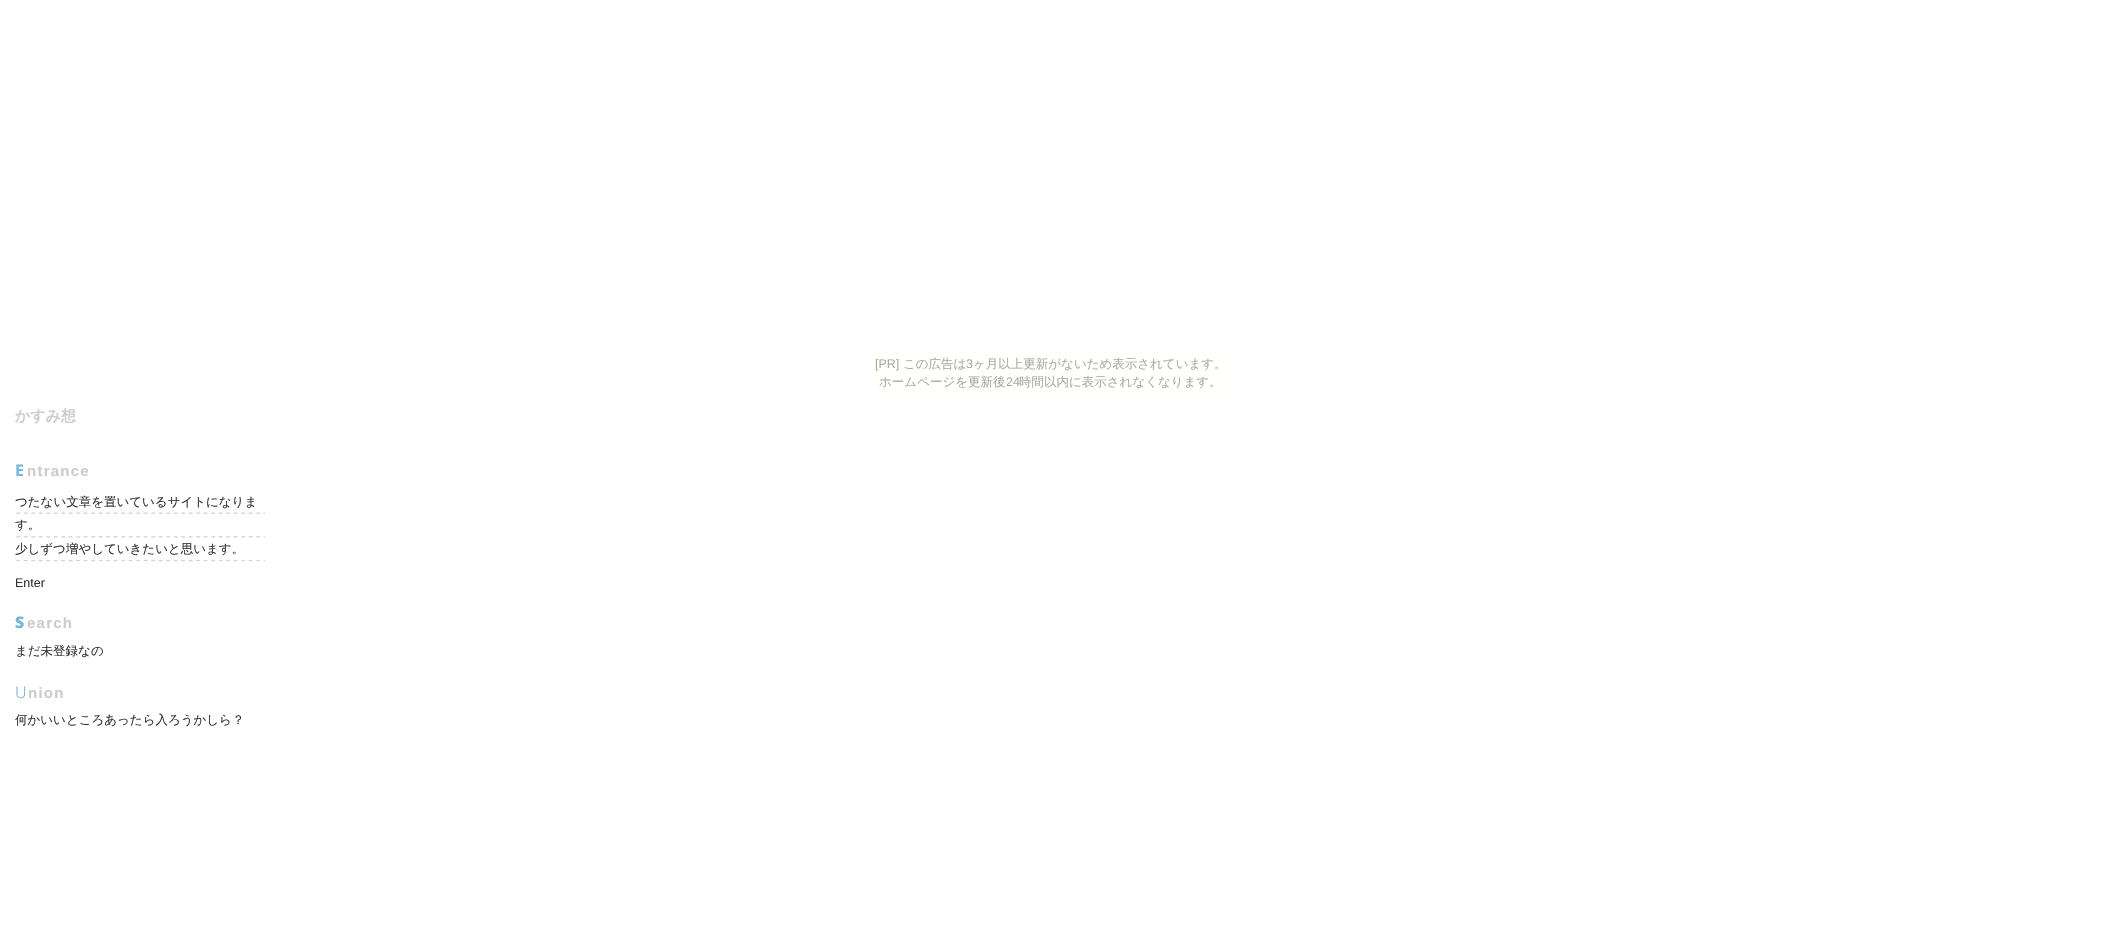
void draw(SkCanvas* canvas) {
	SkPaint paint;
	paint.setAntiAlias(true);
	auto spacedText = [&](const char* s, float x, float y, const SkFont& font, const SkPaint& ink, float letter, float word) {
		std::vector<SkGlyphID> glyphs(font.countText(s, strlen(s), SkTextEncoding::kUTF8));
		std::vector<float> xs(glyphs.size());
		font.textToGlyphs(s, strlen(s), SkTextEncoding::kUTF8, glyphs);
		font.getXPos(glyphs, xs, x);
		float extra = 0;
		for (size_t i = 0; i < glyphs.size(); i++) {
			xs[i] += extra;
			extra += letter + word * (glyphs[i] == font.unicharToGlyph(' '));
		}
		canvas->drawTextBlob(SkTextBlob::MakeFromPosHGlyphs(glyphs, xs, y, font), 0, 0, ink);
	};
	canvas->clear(0xffffffff);
	paint.setColor(0xfffffffc);
	canvas->drawRect(SkRect::MakeXYWH(871, 350, 359, 45), paint);
	SkFont f1(fontMgr->matchFamilyStyle("Liberation Sans", SkFontStyle::Normal()), 12.5);
	f1.setSubpixel(true);
	paint.setColor(0xffaaaaaa);
	canvas->drawString("[PR]", 875, 368, f1, paint);
	SkFont f2(fontMgr->matchFamilyStyle("WenQuanYi Zen Hei", SkFontStyle(500, SkFontStyle::kNormal_Width, SkFontStyle::kUpright_Slant)), 12.5);
	f2.setSubpixel(true);
	canvas->drawString("この広告は", 903, 368, f2, paint);
	canvas->drawString("3", 966, 368, f1, paint);
	canvas->drawString("ヶ月以上更新がないため表示されています。", 973, 368, f2, paint);
	canvas->drawString("ホームページを更新後", 879, 386, f2, paint);
	canvas->drawString("24", 1006, 386, f1, paint);
	canvas->drawString("時間以内に表示されなくなります。", 1019, 386, f2, paint);
	SkFont f3(fontMgr->matchFamilyStyle("WenQuanYi Zen Hei", SkFontStyle::Bold()), 15);
	f3.setSubpixel(true);
	paint.setColor(0xffcccccc);
	canvas->drawString("かすみ想", 15, 421, f3, paint);
	SkFont f4(fontMgr->matchFamilyStyle("Noto Sans", SkFontStyle::Bold()), 16);
	f4.setSubpixel(true);
	paint.setColor(0xff77b8da);
	spacedText("E", 15, 476, f4, paint, 1.25, 0);
	SkFont f5(fontMgr->matchFamilyStyle("Liberation Sans", SkFontStyle::Bold()), 15);
	f5.setSubpixel(true);
	paint.setColor(0xffcccccc);
	spacedText("ntrance", 27, 476, f5, paint, 1.25, 0);
	canvas->drawImageRect(SkImages::DeferredFromEncodedData(SkData::MakeFromFileName("img1.png")), SkRect::MakeXYWH(16, 490, 249, 72), SkSamplingOptions());
	paint.setColor(0xff333333);
	canvas->drawString("つたない文章を置いているサイトになりま", 15, 506, f2, paint);
	canvas->drawString("す。", 15, 529, f2, paint);
	canvas->drawString("少しずつ増やしていきたいと思います。", 15, 553, f2, paint);
	canvas->drawString("Enter", 15, 587, f1, paint);
	SkFont f6(fontMgr->matchFamilyStyle("Noto Sans", SkFontStyle(900, SkFontStyle::kNormal_Width, SkFontStyle::kUpright_Slant)), 16);
	f6.setSubpixel(true);
	paint.setColor(0xff77b8da);
	spacedText("S", 15, 628, f6, paint, 1.25, 0);
	paint.setColor(0xffcccccc);
	spacedText("earch", 27, 628, f5, paint, 1.25, 0);
	paint.setColor(0xff333333);
	canvas->drawString("まだ未登録なの", 15, 655, f2, paint);
	SkFont f7(fontMgr->matchFamilyStyle("Noto Sans", SkFontStyle(300, SkFontStyle::kNormal_Width, SkFontStyle::kUpright_Slant)), 16);
	f7.setSubpixel(true);
	paint.setColor(0xff77b8da);
	spacedText("U", 15, 698, f7, paint, 1.25, 0);
	paint.setColor(0xffcccccc);
	spacedText("nion", 28, 698, f5, paint, 1.25, 0);
	paint.setColor(0xff333333);
	canvas->drawString("何かいいところあったら入ろうかしら？", 15, 724, f2, paint);
}
